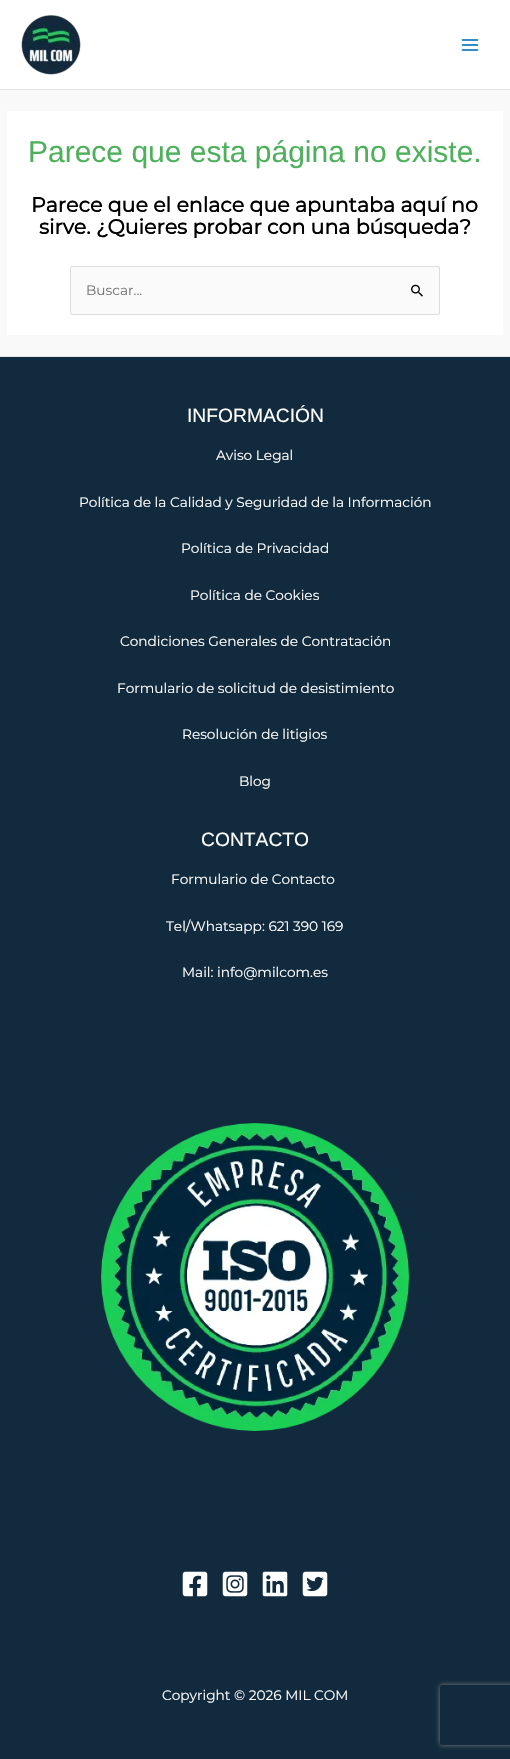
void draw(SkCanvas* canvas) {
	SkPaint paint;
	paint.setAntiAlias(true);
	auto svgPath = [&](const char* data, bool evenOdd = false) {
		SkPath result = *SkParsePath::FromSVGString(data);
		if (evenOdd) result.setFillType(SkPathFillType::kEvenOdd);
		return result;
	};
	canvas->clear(0xfff9f9f9);
	paint.setColor(0xffffffff);
	canvas->drawRect(SkRect::MakeXYWH(0, 0, 510, 89), paint);
	paint.setColor(0xffe5e5e5);
	canvas->drawRect(SkRect::MakeXYWH(0, 89, 510, 1), paint);
	canvas->drawImageRect(SkImages::DeferredFromEncodedData(SkData::MakeFromFileName("img1.png")), SkRect::MakeXYWH(21, 15, 60, 60), SkSamplingOptions());
	canvas->drawImageRect(SkImages::DeferredFromEncodedData(SkData::MakeFromFileName("img2.png")), SkRect::MakeXYWH(461, 39, 18, 12), SkSamplingOptions());
	paint.setColor(0xffffffff);
	canvas->drawRect(SkRect::MakeXYWH(7, 111, 496, 224), paint);
	SkFont f1(fontMgr->matchFamilyStyle("Liberation Sans", SkFontStyle::Normal()), 30);
	f1.setSubpixel(true);
	paint.setColor(0xff4db05b);
	canvas->drawString("Parece que esta página no existe.", 28, 162, f1, paint);
	SkFont f2(fontMgr->matchFamilyStyle("Montserrat", SkFontStyle::Bold()), 20.5);
	f2.setSubpixel(true);
	paint.setColor(0xff000000);
	canvas->drawString("Parece que el enlace que apuntaba aquí no", 31, 212, f2, paint);
	canvas->drawString("sirve. ¿Quieres probar con una búsqueda?", 39, 234, f2, paint);
	paint.setColor(0xfffafafa);
	canvas->drawRoundRect(SkRect::MakeXYWH(70.5, 266.5, 369, 48), 1.5, 1.5, paint);
	paint.setStroke(true);
	paint.setStrokeWidth(1);
	paint.setColor(0xffdddddd);
	canvas->drawRoundRect(SkRect::MakeXYWH(70.5, 266.5, 369, 48), 1.5, 1.5, paint);
	SkFont f3(fontMgr->matchFamilyStyle("Montserrat", SkFontStyle(100, SkFontStyle::kNormal_Width, SkFontStyle::kUpright_Slant)), 13.7);
	f3.setSubpixel(true);
	paint.setStroke(false);
	paint.setColor(0xff757575);
	canvas->drawString("Buscar...", 86, 295, f3, paint);
	canvas->drawImageRect(SkImages::DeferredFromEncodedData(SkData::MakeFromFileName("img3.png")), SkRect::MakeXYWH(411, 284, 12, 13), SkSamplingOptions());
	paint.setColor(0xff112a3d);
	canvas->drawRect(SkRect::MakeXYWH(0, 357, 510, 1402), paint);
	paint.setColor(0xffe5e5e5);
	canvas->drawRect(SkRect::MakeXYWH(0, 356, 510, 1), paint);
	SkFont f4(fontMgr->matchFamilyStyle("Liberation Sans", SkFontStyle::Normal()), 19.25);
	f4.setSubpixel(true);
	paint.setColor(0xffffffff);
	canvas->drawString("INFORMACIÓN", 187, 422, f4, paint);
	canvas->drawString("Aviso Legal", 216, 460, f3, paint);
	canvas->drawString("Política de la Calidad y Seguridad de la Información", 79, 507, f3, paint);
	canvas->drawString("Política de Privacidad", 181, 553, f3, paint);
	canvas->drawString("Política de Cookies", 190, 600, f3, paint);
	canvas->drawString("Condiciones Generales de Contratación", 120, 646, f3, paint);
	canvas->drawString("Formulario de solicitud de desistimiento", 117, 693, f3, paint);
	canvas->drawString("Resolución de litigios", 182, 739, f3, paint);
	canvas->drawString("Blog", 239, 786, f3, paint);
	canvas->drawString("CONTACTO", 201, 846, f4, paint);
	canvas->drawString("Formulario de Contacto", 171, 884, f3, paint);
	canvas->drawString("Tel/Whatsapp: 621 390 169", 166, 931, f3, paint);
	canvas->drawString("Mail: info@milcom.es", 182, 977, f3, paint);
	canvas->drawImageRect(SkImages::DeferredFromEncodedData(SkData::MakeFromFileName("img4.png")), SkRect::MakeXYWH(101, 1123, 308, 308), SkSamplingOptions());
	canvas->drawImageRect(SkImages::DeferredFromEncodedData(SkData::MakeFromFileName("img5.png")), SkRect::MakeXYWH(182, 1571, 26, 26), SkSamplingOptions());
	canvas->drawImageRect(SkImages::DeferredFromEncodedData(SkData::MakeFromFileName("img6.png")), SkRect::MakeXYWH(222, 1571, 26, 26), SkSamplingOptions());
	canvas->drawImageRect(SkImages::DeferredFromEncodedData(SkData::MakeFromFileName("img7.png")), SkRect::MakeXYWH(262, 1571, 26, 26), SkSamplingOptions());
	canvas->drawImageRect(SkImages::DeferredFromEncodedData(SkData::MakeFromFileName("img8.png")), SkRect::MakeXYWH(302, 1571, 26, 26), SkSamplingOptions());
	canvas->drawString("Copyright © 2026 MIL COM", 162, 1700, f3, paint);
	canvas->save();
	canvas->clipPath(svgPath("M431 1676H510V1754H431ZM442 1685H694C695 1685 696 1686 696 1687V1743C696 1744 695 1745 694 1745H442C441 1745 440 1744 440 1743V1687C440 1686 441 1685 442 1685Z", true), true);
	paint.setColor(0xff808080);
	paint.setMaskFilter(SkMaskFilter::MakeBlur(kNormal_SkBlurStyle, 2.5));
	canvas->drawRoundRect(SkRect::MakeXYWH(440, 1685, 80, 60), 2, 2, paint);
	paint.setMaskFilter(nullptr);
	canvas->restore();
}
